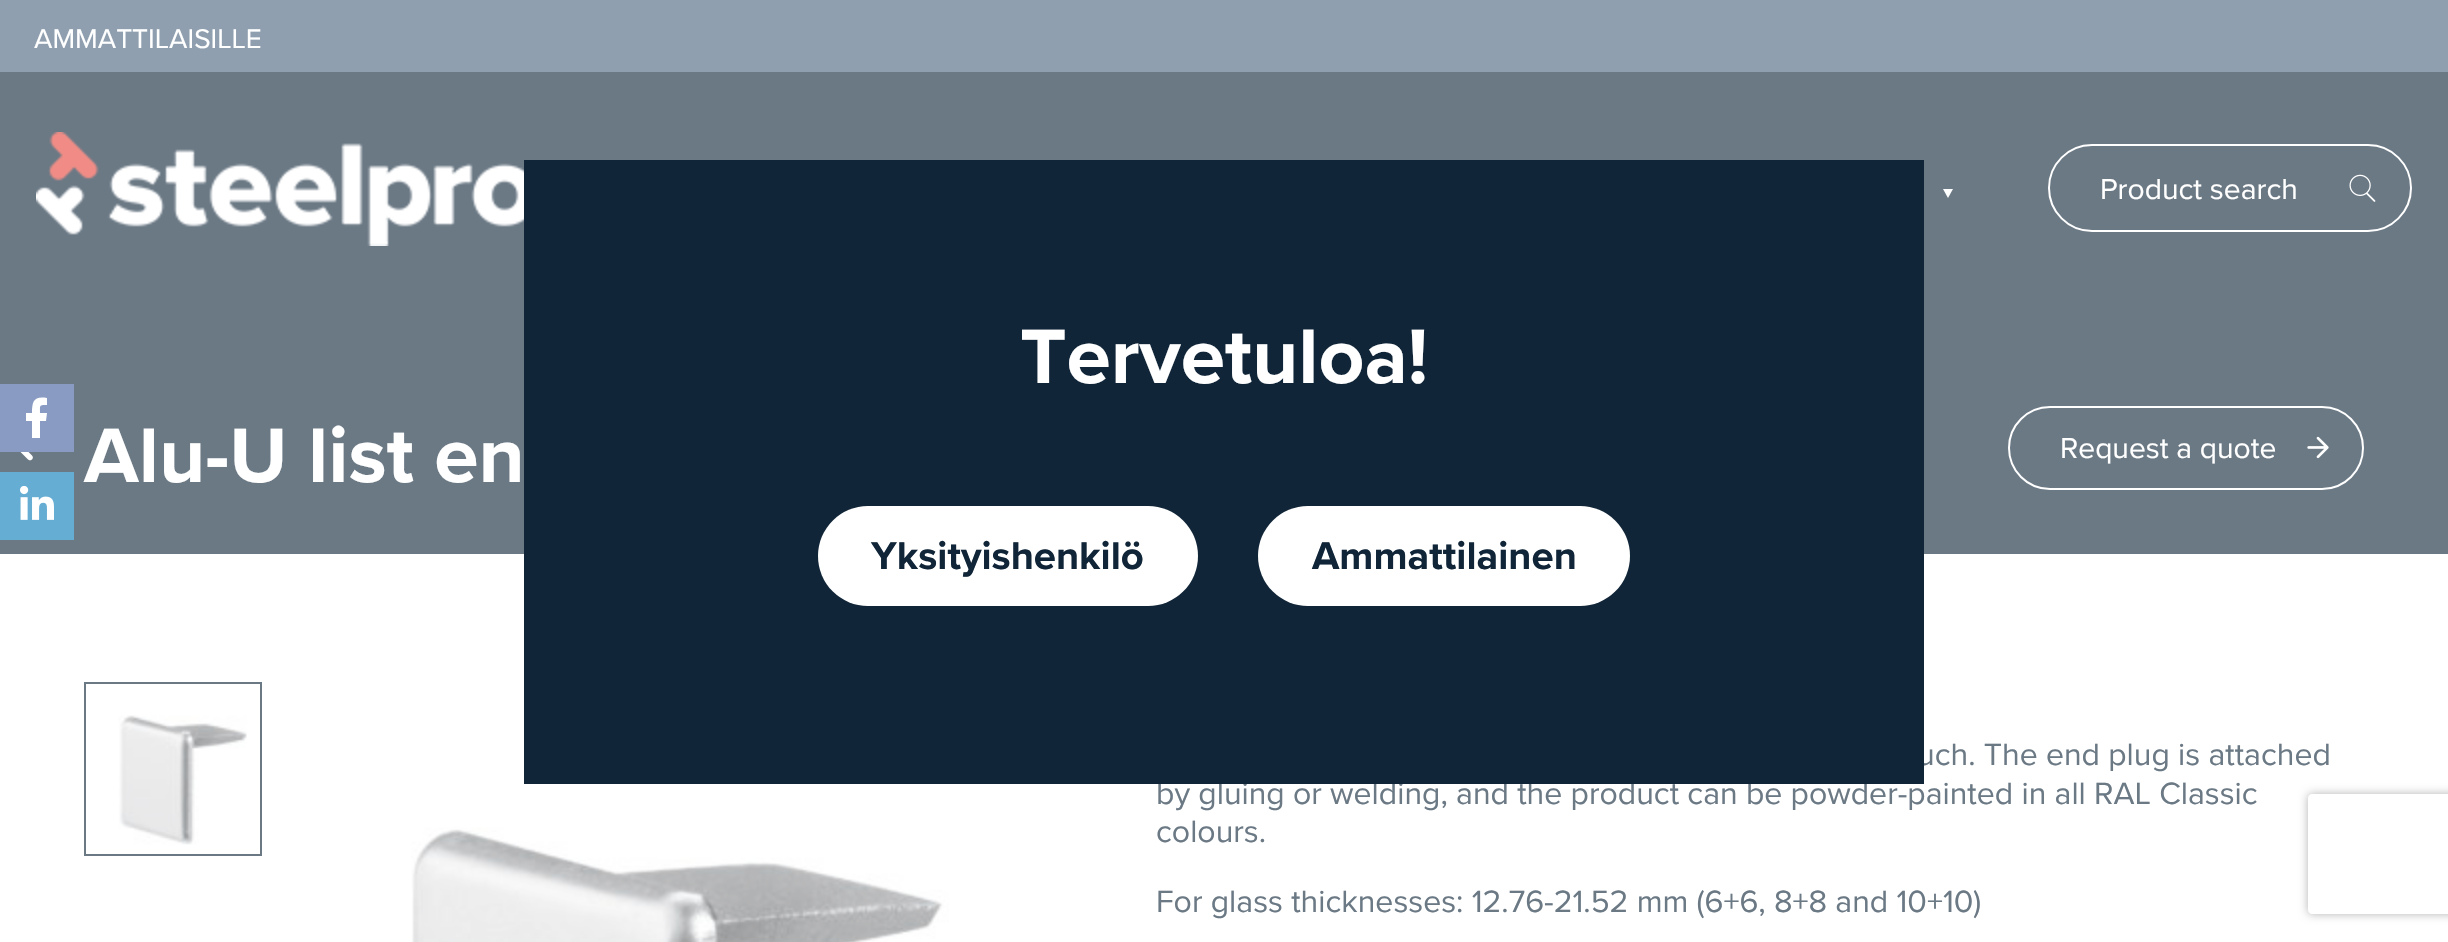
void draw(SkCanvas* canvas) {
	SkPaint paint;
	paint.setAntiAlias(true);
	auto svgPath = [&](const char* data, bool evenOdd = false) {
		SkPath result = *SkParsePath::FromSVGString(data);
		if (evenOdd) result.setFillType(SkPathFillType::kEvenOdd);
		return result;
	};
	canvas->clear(0xffffffff);
	paint.setColor(0xff8f9faf);
	canvas->drawRect(SkRect::MakeXYWH(0, 0, 2448, 72), paint);
	SkFont f1(fontMgr->matchFamilyStyle("Proxima Nova", SkFontStyle::Normal()), 28);
	f1.setSubpixel(true);
	paint.setColor(0xffffffff);
	canvas->drawString("AMMATTILAISILLE", 34, 48, f1, paint);
	paint.setColor(0xff6b7985);
	canvas->drawRect(SkRect::MakeXYWH(0, 72, 2448, 482), paint);
	canvas->drawImageRect(SkImages::DeferredFromEncodedData(SkData::MakeFromFileName("img1.png")), SkRect::MakeXYWH(36, 132, 488, 114), SkSamplingOptions());
	paint.setColor(0xffffffff);
	canvas->drawPath(svgPath("M1943 189H1953L1948 198Z"), paint);
	paint.setStroke(true);
	paint.setStrokeWidth(2);
	canvas->drawRoundRect(SkRect::MakeXYWH(2049, 145, 362, 86), 43, 43, paint);
	SkFont f2(fontMgr->matchFamilyStyle("Proxima Nova", SkFontStyle::Normal()), 30);
	f2.setSubpixel(true);
	paint.setStroke(false);
	canvas->drawString("Product search", 2100, 199, f2, paint);
	canvas->drawImageRect(SkImages::DeferredFromEncodedData(SkData::MakeFromFileName("img2.png")), SkRect::MakeXYWH(2349, 174, 27, 28), SkSamplingOptions());
	canvas->drawImageRect(SkImages::DeferredFromEncodedData(SkData::MakeFromFileName("img3.png")), SkRect::MakeXYWH(20, 452, 13, 9), SkSamplingOptions());
	SkFont f3(fontMgr->matchFamilyStyle("Proxima Nova", SkFontStyle::Bold()), 80);
	f3.setSubpixel(true);
	canvas->drawString("Alu-U list en", 84, 482, f3, paint);
	paint.setStroke(true);
	canvas->drawRoundRect(SkRect::MakeXYWH(2009, 407, 354, 82), 41, 41, paint);
	paint.setStroke(false);
	canvas->drawString("Request a quote", 2060, 458, f2, paint);
	canvas->drawImageRect(SkImages::DeferredFromEncodedData(SkData::MakeFromFileName("img4.png")), SkRect::MakeXYWH(2307, 436, 22, 23), SkSamplingOptions());
	canvas->drawImageRect(SkImages::DeferredFromEncodedData(SkData::MakeFromFileName("img5.png")), SkRect::MakeXYWH(118, 715, 129, 130), SkSamplingOptions());
	paint.setStroke(true);
	paint.setColor(0xff6b7985);
	canvas->drawRect(SkRect::MakeXYWH(85, 683, 176, 172), paint);
	canvas->drawImageRect(SkImages::DeferredFromEncodedData(SkData::MakeFromFileName("img6.png")), SkRect::MakeXYWH(411, 827, 538, 115), SkSamplingOptions());
	SkFont f4(fontMgr->matchFamilyStyle("Proxima Nova", SkFontStyle::Normal()), 32);
	f4.setSubpixel(true);
	paint.setStroke(false);
	canvas->drawString("uch. The end plug is attached", 1917, 765, f4, paint);
	canvas->drawString("by gluing or welding, and the product can be powder-painted in all RAL Classic", 1156, 804, f4, paint);
	canvas->drawString("colours.", 1156, 842, f4, paint);
	canvas->drawString("For glass thicknesses: 12.76-21.52 mm (6+6, 8+8 and 10+10)", 1156, 912, f4, paint);
	paint.setColor(0xff899bc2);
	canvas->drawRect(SkRect::MakeXYWH(0, 384, 74, 68), paint);
	canvas->save();
	canvas->clipRect(SkRect::MakeXYWH(26, 396, 22, 42));
	paint.setColor(0xffffffff);
	canvas->drawPath(svgPath("M32 439V421H26V413H32C32 401 34 396 47 398V405C39 405 40 405 40 413H47L46 421H40V439Z"), paint);
	canvas->restore();
	paint.setColor(0xff66add3);
	canvas->drawRect(SkRect::MakeXYWH(0, 472, 74, 68), paint);
	canvas->drawImageRect(SkImages::DeferredFromEncodedData(SkData::MakeFromFileName("img7.png")), SkRect::MakeXYWH(20, 486, 34, 34), SkSamplingOptions());
	paint.setColor(0xff102538);
	canvas->drawRect(SkRect::MakeXYWH(524, 160, 1400, 624), paint);
	paint.setColor(0xffffffff);
	canvas->drawString("Tervetuloa!", 1020, 383, f3, paint);
	canvas->drawRoundRect(SkRect::MakeXYWH(818, 506, 380, 100), 50, 50, paint);
	SkFont f5(fontMgr->matchFamilyStyle("Proxima Nova", SkFontStyle::Bold()), 40);
	f5.setSubpixel(true);
	paint.setColor(0xff102538);
	canvas->drawString("Yksityishenkilö", 871, 569, f5, paint);
	paint.setColor(0xffffffff);
	canvas->drawRoundRect(SkRect::MakeXYWH(1258, 506, 372, 100), 50, 50, paint);
	paint.setColor(0xff102538);
	canvas->drawString("Ammattilainen", 1312, 569, f5, paint);
	canvas->save();
	canvas->clipPath(svgPath("M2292 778H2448V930H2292ZM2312 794H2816C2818 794 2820 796 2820 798V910C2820 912 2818 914 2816 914H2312C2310 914 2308 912 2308 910V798C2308 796 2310 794 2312 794Z", true), true);
	paint.setColor(0xffb3b3b3);
	paint.setMaskFilter(SkMaskFilter::MakeBlur(kNormal_SkBlurStyle, 5));
	canvas->drawRoundRect(SkRect::MakeXYWH(2308, 794, 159, 120), 4, 4, paint);
	paint.setMaskFilter(nullptr);
	canvas->restore();
}
